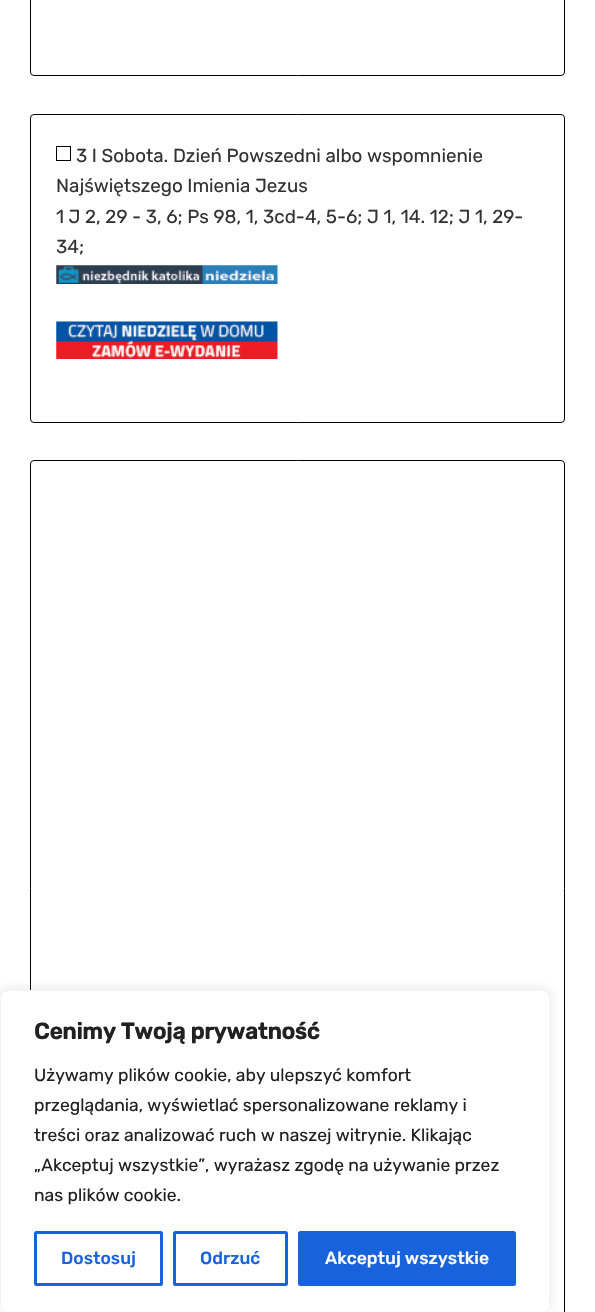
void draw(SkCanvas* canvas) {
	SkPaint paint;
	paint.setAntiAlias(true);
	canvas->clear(0xffffffff);
	paint.setStroke(true);
	paint.setStrokeWidth(1);
	paint.setColor(0xff000000);
	canvas->drawRoundRect(SkRect::MakeXYWH(30.5, -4.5, 534, 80), 3.5, 3.5, paint);
	canvas->drawRoundRect(SkRect::MakeXYWH(30.5, 114.5, 534, 308), 3.5, 3.5, paint);
	canvas->drawRect(SkRect::MakeXYWH(56.5, 146.5, 14, 14), paint);
	SkFont f1(fontMgr->matchFamilyStyle("Rubik", SkFontStyle::Normal()), 18.75);
	f1.setSubpixel(true);
	paint.setStroke(false);
	paint.setColor(0xff333333);
	canvas->drawString("3 I Sobota. Dzień Powszedni albo wspomnienie", 76, 162, f1, paint);
	canvas->drawString("Najświętszego Imienia Jezus", 56, 192, f1, paint);
	canvas->drawString("1 J 2, 29 - 3, 6; Ps 98, 1, 3cd-4, 5-6; J 1, 14. 12; J 1, 29-", 56, 223, f1, paint);
	canvas->drawString("34;", 56, 253, f1, paint);
	canvas->drawImageRect(SkImages::DeferredFromEncodedData(SkData::MakeFromFileName("img1.png")), SkRect::MakeXYWH(56, 265, 222, 19), SkSamplingOptions());
	canvas->drawImageRect(SkImages::DeferredFromEncodedData(SkData::MakeFromFileName("img2.png")), SkRect::MakeXYWH(56, 321, 222, 38), SkSamplingOptions());
	paint.setStroke(true);
	paint.setColor(0xff000000);
	canvas->drawRoundRect(SkRect::MakeXYWH(30.5, 460.5, 534, 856), 3.5, 3.5, paint);
	paint.setStroke(false);
	paint.setColor(0x4dacabab);
	paint.setMaskFilter(SkMaskFilter::MakeBlur(kNormal_SkBlurStyle, 6));
	canvas->drawRoundRect(SkRect::MakeXYWH(0, 989, 550, 322), 8, 8, paint);
	paint.setMaskFilter(nullptr);
	paint.setColor(0xffffffff);
	canvas->drawRoundRect(SkRect::MakeXYWH(0.5, 990.5, 549, 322), 7.5, 7.5, paint);
	paint.setStroke(true);
	paint.setColor(0xfff4f4f4);
	canvas->drawRoundRect(SkRect::MakeXYWH(0.5, 990.5, 549, 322), 7.5, 7.5, paint);
	SkFont f2(fontMgr->matchFamilyStyle("Rubik", SkFontStyle::Bold()), 22.5);
	f2.setSubpixel(true);
	paint.setStroke(false);
	paint.setColor(0xff212121);
	canvas->drawString("Cenimy Twoją prywatność", 34, 1039, f2, paint);
	SkFont f3(fontMgr->matchFamilyStyle("Rubik", SkFontStyle::Normal()), 17.5);
	f3.setSubpixel(true);
	canvas->drawString("Używamy plików cookie, aby ulepszyć komfort", 34, 1081, f3, paint);
	canvas->drawString("przeglądania, wyświetlać spersonalizowane reklamy i", 34, 1111, f3, paint);
	canvas->drawString("treści oraz analizować ruch w naszej witrynie. Klikając", 34, 1141, f3, paint);
	canvas->drawString("„Akceptuj wszystkie”, wyrażasz zgodę na używanie przez", 34, 1171, f3, paint);
	canvas->drawString("nas plików cookie.", 34, 1201, f3, paint);
	paint.setStroke(true);
	paint.setStrokeWidth(3);
	paint.setColor(0xff1863dc);
	canvas->drawRoundRect(SkRect::MakeXYWH(35.5, 1232.5, 126, 52), 1, 1, paint);
	SkFont f4(fontMgr->matchFamilyStyle("Rubik", SkFontStyle(500, SkFontStyle::kNormal_Width, SkFontStyle::kUpright_Slant)), 17.5);
	f4.setSubpixel(true);
	paint.setStroke(false);
	canvas->drawString("Dostosuj", 61, 1264, f4, paint);
	paint.setStroke(true);
	canvas->drawRoundRect(SkRect::MakeXYWH(174.5, 1232.5, 112, 52), 1, 1, paint);
	paint.setStroke(false);
	canvas->drawString("Odrzuć", 200, 1264, f4, paint);
	canvas->drawRoundRect(SkRect::MakeXYWH(299.5, 1232.5, 215, 52), 1, 1, paint);
	paint.setStroke(true);
	canvas->drawRoundRect(SkRect::MakeXYWH(299.5, 1232.5, 215, 52), 1, 1, paint);
	paint.setStroke(false);
	paint.setColor(0xffffffff);
	canvas->drawString("Akceptuj wszystkie", 325, 1264, f4, paint);
}
